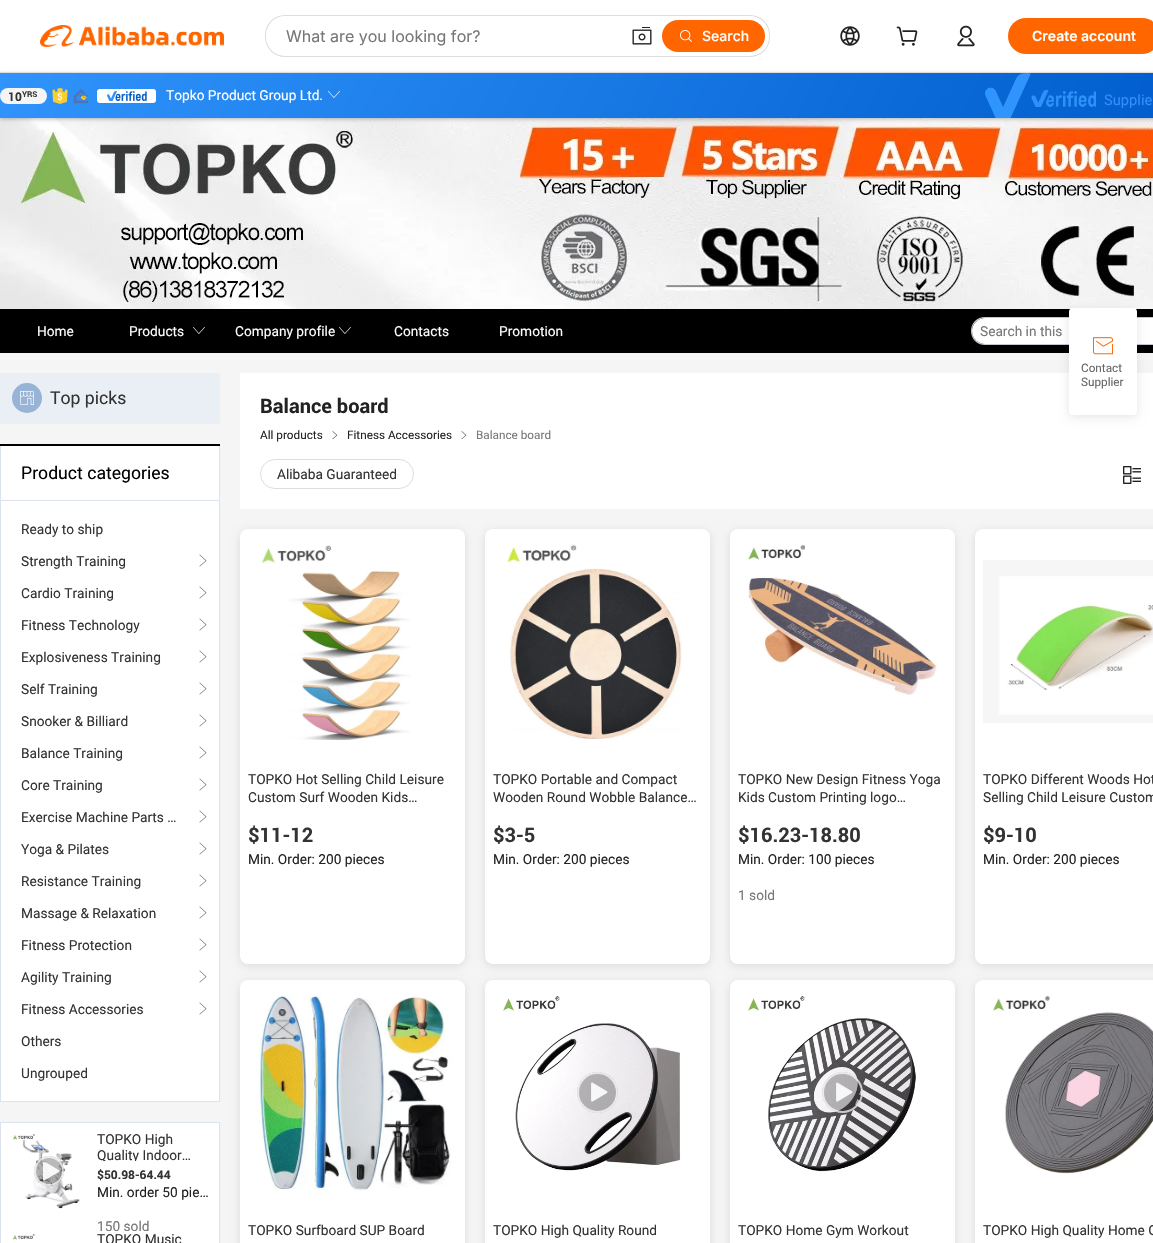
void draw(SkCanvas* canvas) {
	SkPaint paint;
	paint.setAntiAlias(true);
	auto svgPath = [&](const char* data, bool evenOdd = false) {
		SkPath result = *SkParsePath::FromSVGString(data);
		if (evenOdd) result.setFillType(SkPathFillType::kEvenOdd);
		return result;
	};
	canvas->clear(0xffffffff);
	canvas->drawImageRect(SkImages::DeferredFromEncodedData(SkData::MakeFromFileName("img12.png")), SkRect::MakeXYWH(0, 118, 1153, 191), SkSamplingOptions());
	paint.setColor(0x47000000);
	paint.setMaskFilter(SkMaskFilter::MakeBlur(kNormal_SkBlurStyle, 2));
	canvas->drawRect(SkRect::MakeXYWH(0, 74, 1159, 45), paint);
	paint.setMaskFilter(nullptr);
	paint.setColor(0xffdddddd);
	canvas->drawRect(SkRect::MakeXYWH(0, 72, 1153, 1), paint);
	canvas->drawImageRect(SkImages::DeferredFromEncodedData(SkData::MakeFromFileName("img1.png")), SkRect::MakeXYWH(40, 25, 184, 22), SkSamplingOptions());
	canvas->drawRoundRect(SkRect::MakeXYWH(265, 15, 505, 42), 20, 20, paint);
	paint.setColor(0xffffffff);
	canvas->drawRoundRect(SkRect::MakeXYWH(266, 16, 503, 40), 19, 19, paint);
	SkFont f1(fontMgr->matchFamilyStyle("Inter", SkFontStyle::Normal()), 16);
	f1.setSubpixel(true);
	paint.setColor(0xff767676);
	canvas->drawString("What are you looking for?", 286, 42, f1, paint);
	canvas->drawImageRect(SkImages::DeferredFromEncodedData(SkData::MakeFromFileName("img2.png")), SkRect::MakeXYWH(632, 27, 20, 18), SkSamplingOptions());
	paint.setColor(0xffff6600);
	canvas->drawRoundRect(SkRect::MakeXYWH(662, 20, 103, 32), 16, 16, paint);
	canvas->drawImageRect(SkImages::DeferredFromEncodedData(SkData::MakeFromFileName("img3.png")), SkRect::MakeXYWH(680, 30, 12, 12), SkSamplingOptions());
	SkFont f2(fontMgr->matchFamilyStyle("Inter", SkFontStyle(500, SkFontStyle::kNormal_Width, SkFontStyle::kUpright_Slant)), 14);
	f2.setSubpixel(true);
	paint.setColor(0xffffffff);
	canvas->drawString("Search", 702, 41, f2, paint);
	canvas->drawImageRect(SkImages::DeferredFromEncodedData(SkData::MakeFromFileName("img4.png")), SkRect::MakeXYWH(840, 26, 20, 20), SkSamplingOptions());
	canvas->drawImageRect(SkImages::DeferredFromEncodedData(SkData::MakeFromFileName("img5.png")), SkRect::MakeXYWH(896, 26, 22, 20), SkSamplingOptions());
	canvas->drawImageRect(SkImages::DeferredFromEncodedData(SkData::MakeFromFileName("img6.png")), SkRect::MakeXYWH(957, 25, 18, 22), SkSamplingOptions());
	paint.setColor(0xffff6600);
	canvas->drawRoundRect(SkRect::MakeXYWH(1008, 18, 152, 36), 18, 18, paint);
	SkFont f3(fontMgr->matchFamilyStyle("Inter", SkFontStyle(600, SkFontStyle::kNormal_Width, SkFontStyle::kUpright_Slant)), 14);
	f3.setSubpixel(true);
	paint.setColor(0xffffffff);
	canvas->drawString("Create account", 1032, 41, f3, paint);
	{
		const SkColor colors[] = {0xff3094fc, 0xff005ccc};
		const float stops[] = {0, 1};
		const SkPoint ends[] = {{123, -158}, {1077, 349}};
		paint.setShader(SkGradientShader::MakeLinear(ends, colors, stops, 2, SkTileMode::kClamp));
		paint.setAlpha(255);
	}
	canvas->drawRect(SkRect::MakeXYWH(0, 73, 1153, 45), paint);
	paint.setShader(nullptr);
	paint.setColor(0xfff5f5f5);
	canvas->drawRoundRect(SkRect::MakeXYWH(0, 88, 47, 16), 8, 8, paint);
	SkFont f4(fontMgr->matchFamilyStyle("Roboto", SkFontStyle::Bold()), 12);
	f4.setSubpixel(true);
	paint.setColor(0xff333333);
	canvas->drawString("10", 8, 101, f4, paint);
	SkFont f5(fontMgr->matchFamilyStyle("Roboto", SkFontStyle::Bold()), 8);
	f5.setSubpixel(true);
	canvas->drawString("YRS", 22, 97, f5, paint);
	canvas->drawImageRect(SkImages::DeferredFromEncodedData(SkData::MakeFromFileName("img7.png")), SkRect::MakeXYWH(52, 88, 16, 16), SkSamplingOptions());
	canvas->drawImageRect(SkImages::DeferredFromEncodedData(SkData::MakeFromFileName("img8.png")), SkRect::MakeXYWH(73, 89, 16, 15), SkSamplingOptions());
	paint.setColor(0xffffffff);
	canvas->drawRoundRect(SkRect::MakeXYWH(97, 89, 59, 14), 3, 3, paint);
	canvas->drawImageRect(SkImages::DeferredFromEncodedData(SkData::MakeFromFileName("img9.png")), SkRect::MakeXYWH(107, 91, 40, 10), SkSamplingOptions());
	SkFont f6(fontMgr->matchFamilyStyle("Roboto", SkFontStyle::Normal()), 14);
	f6.setSubpixel(true);
	canvas->drawString("Topko Product Group Ltd.", 166, 100, f6, paint);
	canvas->drawImageRect(SkImages::DeferredFromEncodedData(SkData::MakeFromFileName("img10.png")), SkRect::MakeXYWH(328, 91, 12, 7), SkSamplingOptions());
	canvas->drawImageRect(SkImages::DeferredFromEncodedData(SkData::MakeFromFileName("img11.png")), SkRect::MakeXYWH(985, 73, 111, 45), SkSamplingOptions());
	SkFont f7(fontMgr->matchFamilyStyle("Roboto", SkFontStyle::Normal()), 15);
	f7.setSubpixel(true);
	paint.setColor(0xff348df8);
	canvas->drawString("Supplie", 1104, 105, f7, paint);
	paint.setColor(0xff000000);
	canvas->drawRect(SkRect::MakeXYWH(0, 309, 1153, 44), paint);
	paint.setColor(0xffffffff);
	canvas->drawString("Home", 37, 336, f6, paint);
	canvas->drawString("Products", 129, 336, f6, paint);
	canvas->drawImageRect(SkImages::DeferredFromEncodedData(SkData::MakeFromFileName("img13.png")), SkRect::MakeXYWH(193, 327, 12, 7), SkSamplingOptions());
	canvas->drawString("Company profile", 235, 336, f6, paint);
	canvas->drawImageRect(SkImages::DeferredFromEncodedData(SkData::MakeFromFileName("img13.png")), SkRect::MakeXYWH(339, 327, 12, 7), SkSamplingOptions());
	canvas->drawString("Contacts", 394, 336, f6, paint);
	canvas->drawString("Promotion", 499, 336, f6, paint);
	paint.setColor(0xffc4c6cf);
	canvas->drawPath(svgPath("M985 317H1152V345H985C977 345 971 339 971 331C971 323 977 317 985 317ZM985 318H1152V344H985C978 344 972 338 972 331C972 324 978 318 985 318Z", true), paint);
	paint.setColor(0xffffffff);
	canvas->drawPath(svgPath("M985 318H1151.5C1152 318 1152 318 1152 318.5V343.5C1152 344 1152 344 1151.5 344H985C978 344 972 338 972 331C972 324 978 318 985 318Z"), paint);
	paint.setColor(0xff767676);
	canvas->drawString("Search in this", 980, 336, f6, paint);
	paint.setColor(0xffffffff);
	canvas->drawRect(SkRect::MakeXYWH(1152, 317, 1, 28), paint);
	paint.setColor(0xffc4c6cf);
	canvas->drawPath(svgPath("M1152 317H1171C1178.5 317 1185 323.5 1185 331C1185 338.5 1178.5 345 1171 345H1152ZM1152 318H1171C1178 318 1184 324 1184 331C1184 338 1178 344 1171 344H1152Z", true), paint);
	paint.setColor(0xfff5f5f5);
	canvas->drawRect(SkRect::MakeXYWH(0, 353, 1153, 890), paint);
	paint.setColor(0xffe9eff5);
	canvas->drawRect(SkRect::MakeXYWH(0, 373, 220, 51), paint);
	paint.setColor(0xff97b3d5);
	canvas->drawCircle(27, 398, 15, paint);
	canvas->drawImageRect(SkImages::DeferredFromEncodedData(SkData::MakeFromFileName("img14.png")), SkRect::MakeXYWH(20, 391, 14, 14), SkSamplingOptions());
	SkFont f8(fontMgr->matchFamilyStyle("Roboto", SkFontStyle::Normal()), 18);
	f8.setSubpixel(true);
	paint.setColor(0xff333333);
	canvas->drawString("Top picks", 50, 404, f8, paint);
	paint.setColor(0xffffffff);
	canvas->drawRect(SkRect::MakeXYWH(1, 446, 218, 655), paint);
	paint.setColor(0xff000000);
	canvas->drawRect(SkRect::MakeXYWH(0, 444, 220, 2), paint);
	paint.setColor(0xffdbe3ef);
	canvas->drawRect(SkRect::MakeXYWH(219, 446, 1, 656), paint);
	canvas->drawRect(SkRect::MakeXYWH(0, 1101, 220, 1), paint);
	canvas->drawRect(SkRect::MakeXYWH(0, 446, 1, 656), paint);
	canvas->drawRect(SkRect::MakeXYWH(1, 500, 218, 1), paint);
	paint.setColor(0xff000000);
	canvas->drawString("Product categories", 21, 479, f8, paint);
	paint.setColor(0xff333333);
	canvas->drawString("Ready to ship", 21, 534, f6, paint);
	canvas->drawString("Strength Training", 21, 566, f6, paint);
	canvas->drawImageRect(SkImages::DeferredFromEncodedData(SkData::MakeFromFileName("img15.png")), SkRect::MakeXYWH(199, 554, 8, 13), SkSamplingOptions());
	canvas->drawString("Cardio Training", 21, 598, f6, paint);
	canvas->drawImageRect(SkImages::DeferredFromEncodedData(SkData::MakeFromFileName("img15.png")), SkRect::MakeXYWH(199, 586, 8, 13), SkSamplingOptions());
	canvas->drawString("Fitness Technology", 21, 630, f6, paint);
	canvas->drawImageRect(SkImages::DeferredFromEncodedData(SkData::MakeFromFileName("img15.png")), SkRect::MakeXYWH(199, 618, 8, 13), SkSamplingOptions());
	canvas->drawString("Explosiveness Training", 21, 662, f6, paint);
	canvas->drawImageRect(SkImages::DeferredFromEncodedData(SkData::MakeFromFileName("img15.png")), SkRect::MakeXYWH(199, 650, 8, 13), SkSamplingOptions());
	canvas->drawString("Self Training", 21, 694, f6, paint);
	canvas->drawImageRect(SkImages::DeferredFromEncodedData(SkData::MakeFromFileName("img15.png")), SkRect::MakeXYWH(199, 682, 8, 13), SkSamplingOptions());
	canvas->drawString("Snooker & Billiard", 21, 726, f6, paint);
	canvas->drawImageRect(SkImages::DeferredFromEncodedData(SkData::MakeFromFileName("img15.png")), SkRect::MakeXYWH(199, 714, 8, 13), SkSamplingOptions());
	canvas->drawString("Balance Training", 21, 758, f6, paint);
	canvas->drawImageRect(SkImages::DeferredFromEncodedData(SkData::MakeFromFileName("img15.png")), SkRect::MakeXYWH(199, 746, 8, 13), SkSamplingOptions());
	canvas->drawString("Core Training", 21, 790, f6, paint);
	canvas->drawImageRect(SkImages::DeferredFromEncodedData(SkData::MakeFromFileName("img15.png")), SkRect::MakeXYWH(199, 778, 8, 13), SkSamplingOptions());
	canvas->drawString("Exercise Machine Parts …", 21, 822, f6, paint);
	canvas->drawImageRect(SkImages::DeferredFromEncodedData(SkData::MakeFromFileName("img15.png")), SkRect::MakeXYWH(199, 810, 8, 13), SkSamplingOptions());
	canvas->drawString("Yoga & Pilates", 21, 854, f6, paint);
	canvas->drawImageRect(SkImages::DeferredFromEncodedData(SkData::MakeFromFileName("img15.png")), SkRect::MakeXYWH(199, 842, 8, 13), SkSamplingOptions());
	canvas->drawString("Resistance Training", 21, 886, f6, paint);
	canvas->drawImageRect(SkImages::DeferredFromEncodedData(SkData::MakeFromFileName("img15.png")), SkRect::MakeXYWH(199, 874, 8, 13), SkSamplingOptions());
	canvas->drawString("Massage & Relaxation", 21, 918, f6, paint);
	canvas->drawImageRect(SkImages::DeferredFromEncodedData(SkData::MakeFromFileName("img15.png")), SkRect::MakeXYWH(199, 906, 8, 13), SkSamplingOptions());
	canvas->drawString("Fitness Protection", 21, 950, f6, paint);
	canvas->drawImageRect(SkImages::DeferredFromEncodedData(SkData::MakeFromFileName("img15.png")), SkRect::MakeXYWH(199, 938, 8, 13), SkSamplingOptions());
	canvas->drawString("Agility Training", 21, 982, f6, paint);
	canvas->drawImageRect(SkImages::DeferredFromEncodedData(SkData::MakeFromFileName("img15.png")), SkRect::MakeXYWH(199, 970, 8, 13), SkSamplingOptions());
	canvas->drawString("Fitness Accessories", 21, 1014, f6, paint);
	canvas->drawImageRect(SkImages::DeferredFromEncodedData(SkData::MakeFromFileName("img15.png")), SkRect::MakeXYWH(199, 1002, 8, 13), SkSamplingOptions());
	canvas->drawString("Others", 21, 1046, f6, paint);
	canvas->drawString("Ungrouped", 21, 1078, f6, paint);
	paint.setColor(0xffffffff);
	canvas->drawRect(SkRect::MakeXYWH(0.5, 1122.5, 219, 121), paint);
	paint.setStroke(true);
	paint.setStrokeWidth(1);
	paint.setColor(0xffdbe3ef);
	canvas->drawRect(SkRect::MakeXYWH(0.5, 1122.5, 219, 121), paint);
	canvas->drawImageRect(SkImages::DeferredFromEncodedData(SkData::MakeFromFileName("img16.png")), SkRect::MakeXYWH(13, 1134, 67, 75), SkSamplingOptions());
	paint.setStroke(false);
	paint.setColor(0x45000000);
	canvas->drawCircle(49, 1171, 15, paint);
	paint.setStroke(true);
	paint.setStrokeWidth(2);
	paint.setColor(0xb8ffffff);
	canvas->drawCircle(49, 1171, 14, paint);
	canvas->drawImageRect(SkImages::DeferredFromEncodedData(SkData::MakeFromFileName("img17.png")), SkRect::MakeXYWH(43, 1161, 17, 20), SkSamplingOptions());
	paint.setStroke(false);
	paint.setColor(0xff333333);
	canvas->drawString("TOPKO High", 97, 1144, f6, paint);
	canvas->save();
	canvas->clipRect(SkRect::MakeXYWH(97, 1131, 114, 30));
	canvas->drawString("Quality Indoor…", 97, 1160, f6, paint);
	canvas->restore();
	canvas->drawString("$50.98-64.44", 97, 1179, f4, paint);
	paint.setColor(0xff222222);
	canvas->drawString("Min. order 50 pie…", 97, 1197, f6, paint);
	canvas->save();
	canvas->clipRect(SkRect::MakeXYWH(97, 1131, 114, 100));
	paint.setColor(0xff767676);
	canvas->drawString("150 sold", 97, 1231, f6, paint);
	canvas->restore();
	canvas->drawImageRect(SkImages::DeferredFromEncodedData(SkData::MakeFromFileName("img18.png")), SkRect::MakeXYWH(13, 1234, 22, 6), SkSamplingOptions());
	paint.setColor(0xff333333);
	canvas->drawString("TOPKO Music", 97, 1244, f6, paint);
	paint.setColor(0xffffffff);
	canvas->drawRect(SkRect::MakeXYWH(240, 373, 913, 136), paint);
	SkFont f9(fontMgr->matchFamilyStyle("Roboto", SkFontStyle::Bold()), 20);
	f9.setSubpixel(true);
	paint.setColor(0xff222222);
	canvas->drawString("Balance board", 260, 413, f9, paint);
	SkFont f10(fontMgr->matchFamilyStyle("Roboto", SkFontStyle::Normal()), 12);
	f10.setSubpixel(true);
	canvas->drawString("All products", 260, 439, f10, paint);
	canvas->drawImageRect(SkImages::DeferredFromEncodedData(SkData::MakeFromFileName("img19.png")), SkRect::MakeXYWH(332, 431, 6, 9), SkSamplingOptions());
	canvas->drawString("Fitness Accessories", 347, 439, f10, paint);
	canvas->drawImageRect(SkImages::DeferredFromEncodedData(SkData::MakeFromFileName("img20.png")), SkRect::MakeXYWH(461, 431, 6, 9), SkSamplingOptions());
	paint.setColor(0xff767676);
	canvas->drawString("Balance board", 476, 439, f10, paint);
	paint.setStroke(true);
	paint.setStrokeWidth(1);
	paint.setColor(0xffdddddd);
	canvas->drawRoundRect(SkRect::MakeXYWH(260.5, 459.5, 153, 29), 14.5, 14.5, paint);
	paint.setStroke(false);
	paint.setColor(0xff333333);
	canvas->drawString("Alibaba Guaranteed", 277, 479, f6, paint);
	canvas->drawImageRect(SkImages::DeferredFromEncodedData(SkData::MakeFromFileName("img21.png")), SkRect::MakeXYWH(1123, 466, 18, 18), SkSamplingOptions());
	paint.setColor(0x1a000000);
	paint.setMaskFilter(SkMaskFilter::MakeBlur(kNormal_SkBlurStyle, 4));
	canvas->drawRoundRect(SkRect::MakeXYWH(240, 531, 225, 435), 8, 8, paint);
	paint.setMaskFilter(nullptr);
	paint.setColor(0xffffffff);
	canvas->drawRoundRect(SkRect::MakeXYWH(240, 529, 225, 435), 8, 8, paint);
	canvas->drawImageRect(SkImages::DeferredFromEncodedData(SkData::MakeFromFileName("img22.png")), SkRect::MakeXYWH(262, 545, 149, 195), SkSamplingOptions());
	paint.setColor(0xff333333);
	canvas->drawString("TOPKO Hot Selling Child Leisure", 248, 784, f6, paint);
	canvas->drawString("Custom Surf Wooden Kids…", 248, 802, f6, paint);
	canvas->drawString("$11-12", 248, 842, f9, paint);
	paint.setColor(0xff222222);
	canvas->drawString("Min. Order: 200 pieces", 248, 864, f6, paint);
	paint.setColor(0x1a000000);
	paint.setMaskFilter(SkMaskFilter::MakeBlur(kNormal_SkBlurStyle, 4));
	canvas->drawRoundRect(SkRect::MakeXYWH(485, 531, 225, 435), 8, 8, paint);
	paint.setMaskFilter(nullptr);
	paint.setColor(0xffffffff);
	canvas->drawRoundRect(SkRect::MakeXYWH(485, 529, 225, 435), 8, 8, paint);
	canvas->drawImageRect(SkImages::DeferredFromEncodedData(SkData::MakeFromFileName("img23.png")), SkRect::MakeXYWH(506, 544, 176, 195), SkSamplingOptions());
	paint.setColor(0xff333333);
	canvas->drawString("TOPKO Portable and Compact", 493, 784, f6, paint);
	canvas->drawString("Wooden Round Wobble Balance…", 493, 802, f6, paint);
	canvas->drawString("$3-5", 493, 842, f9, paint);
	paint.setColor(0xff222222);
	canvas->drawString("Min. Order: 200 pieces", 493, 864, f6, paint);
	paint.setColor(0x1a000000);
	paint.setMaskFilter(SkMaskFilter::MakeBlur(kNormal_SkBlurStyle, 4));
	canvas->drawRoundRect(SkRect::MakeXYWH(730, 531, 225, 435), 8, 8, paint);
	paint.setMaskFilter(nullptr);
	paint.setColor(0xffffffff);
	canvas->drawRoundRect(SkRect::MakeXYWH(730, 529, 225, 435), 8, 8, paint);
	canvas->drawImageRect(SkImages::DeferredFromEncodedData(SkData::MakeFromFileName("img24.png")), SkRect::MakeXYWH(748, 544, 189, 151), SkSamplingOptions());
	paint.setColor(0xff333333);
	canvas->drawString("TOPKO New Design Fitness Yoga", 738, 784, f6, paint);
	canvas->drawString("Kids Custom Printing logo…", 738, 802, f6, paint);
	canvas->drawString("$16.23-18.80", 738, 842, f9, paint);
	paint.setColor(0xff222222);
	canvas->drawString("Min. Order: 100 pieces", 738, 864, f6, paint);
	paint.setColor(0xff767676);
	canvas->drawString("1 sold", 738, 900, f6, paint);
	paint.setColor(0x1a000000);
	paint.setMaskFilter(SkMaskFilter::MakeBlur(kNormal_SkBlurStyle, 4));
	canvas->drawRoundRect(SkRect::MakeXYWH(975, 531, 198, 435), 8, 8, paint);
	paint.setMaskFilter(nullptr);
	paint.setColor(0xffffffff);
	canvas->drawRoundRect(SkRect::MakeXYWH(975, 529, 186, 435), 8, 8, paint);
	canvas->drawImageRect(SkImages::DeferredFromEncodedData(SkData::MakeFromFileName("img25.png")), SkRect::MakeXYWH(983, 560, 170, 163), SkSamplingOptions());
	paint.setColor(0xff333333);
	canvas->drawString("TOPKO Different Woods Hot", 983, 784, f6, paint);
	canvas->drawString("Selling Child Leisure Custom", 983, 802, f6, paint);
	canvas->drawString("$9-10", 983, 842, f9, paint);
	paint.setColor(0xff222222);
	canvas->drawString("Min. Order: 200 pieces", 983, 864, f6, paint);
	paint.setColor(0x1a000000);
	paint.setMaskFilter(SkMaskFilter::MakeBlur(kNormal_SkBlurStyle, 4));
	canvas->drawRoundRect(SkRect::MakeXYWH(240, 982, 225, 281), 8, 8, paint);
	paint.setMaskFilter(nullptr);
	paint.setColor(0xffffffff);
	canvas->drawRoundRect(SkRect::MakeXYWH(240, 980, 225, 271), 8, 8, paint);
	canvas->drawImageRect(SkImages::DeferredFromEncodedData(SkData::MakeFromFileName("img26.png")), SkRect::MakeXYWH(259, 995, 193, 196), SkSamplingOptions());
	paint.setColor(0xff333333);
	canvas->drawString("TOPKO Surfboard SUP Board", 248, 1235, f6, paint);
	paint.setColor(0x1a000000);
	paint.setMaskFilter(SkMaskFilter::MakeBlur(kNormal_SkBlurStyle, 4));
	canvas->drawRoundRect(SkRect::MakeXYWH(485, 982, 225, 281), 8, 8, paint);
	paint.setMaskFilter(nullptr);
	paint.setColor(0xffffffff);
	canvas->drawRoundRect(SkRect::MakeXYWH(485, 980, 225, 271), 8, 8, paint);
	canvas->drawImageRect(SkImages::DeferredFromEncodedData(SkData::MakeFromFileName("img27.png")), SkRect::MakeXYWH(493, 988, 209, 209), SkSamplingOptions());
	paint.setColor(0x45000000);
	canvas->drawCircle(597.5, 1092.5, 20.5, paint);
	paint.setStroke(true);
	paint.setStrokeWidth(2);
	paint.setColor(0xb8ffffff);
	canvas->drawCircle(597.5, 1092.5, 19.5, paint);
	canvas->drawImageRect(SkImages::DeferredFromEncodedData(SkData::MakeFromFileName("img28.png")), SkRect::MakeXYWH(591, 1082, 17, 20), SkSamplingOptions());
	paint.setStroke(false);
	paint.setColor(0xff333333);
	canvas->drawString("TOPKO High Quality Round", 493, 1235, f6, paint);
	paint.setColor(0x1a000000);
	paint.setMaskFilter(SkMaskFilter::MakeBlur(kNormal_SkBlurStyle, 4));
	canvas->drawRoundRect(SkRect::MakeXYWH(730, 982, 225, 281), 8, 8, paint);
	paint.setMaskFilter(nullptr);
	paint.setColor(0xffffffff);
	canvas->drawRoundRect(SkRect::MakeXYWH(730, 980, 225, 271), 8, 8, paint);
	canvas->drawImageRect(SkImages::DeferredFromEncodedData(SkData::MakeFromFileName("img29.png")), SkRect::MakeXYWH(738, 988, 209, 209), SkSamplingOptions());
	paint.setColor(0x45000000);
	canvas->drawCircle(842.5, 1092.5, 20.5, paint);
	paint.setStroke(true);
	paint.setColor(0xb8ffffff);
	canvas->drawCircle(842.5, 1092.5, 19.5, paint);
	canvas->drawImageRect(SkImages::DeferredFromEncodedData(SkData::MakeFromFileName("img30.png")), SkRect::MakeXYWH(836, 1082, 17, 20), SkSamplingOptions());
	paint.setStroke(false);
	paint.setColor(0xff333333);
	canvas->drawString("TOPKO Home Gym Workout", 738, 1235, f6, paint);
	paint.setColor(0x1a000000);
	paint.setMaskFilter(SkMaskFilter::MakeBlur(kNormal_SkBlurStyle, 4));
	canvas->drawRoundRect(SkRect::MakeXYWH(975, 982, 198, 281), 8, 8, paint);
	paint.setMaskFilter(nullptr);
	paint.setColor(0xffffffff);
	canvas->drawRoundRect(SkRect::MakeXYWH(975, 980, 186, 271), 8, 8, paint);
	canvas->drawImageRect(SkImages::DeferredFromEncodedData(SkData::MakeFromFileName("img31.png")), SkRect::MakeXYWH(992, 995, 161, 179), SkSamplingOptions());
	paint.setColor(0xff333333);
	canvas->drawString("TOPKO High Quality Home G", 983, 1235, f6, paint);
	paint.setColor(0x1a000000);
	paint.setMaskFilter(SkMaskFilter::MakeBlur(kNormal_SkBlurStyle, 5));
	canvas->drawRoundRect(SkRect::MakeXYWH(1069, 310, 68, 107), 4, 4, paint);
	paint.setMaskFilter(nullptr);
	paint.setColor(0xffffffff);
	canvas->drawRoundRect(SkRect::MakeXYWH(1069, 308, 68, 107), 4, 4, paint);
	canvas->drawImageRect(SkImages::DeferredFromEncodedData(SkData::MakeFromFileName("img32.png")), SkRect::MakeXYWH(1093, 337, 20, 18), SkSamplingOptions());
	paint.setColor(0xff666666);
	canvas->drawString("Contact", 1081, 372, f10, paint);
	canvas->drawString("Supplier", 1081, 386, f10, paint);
}
